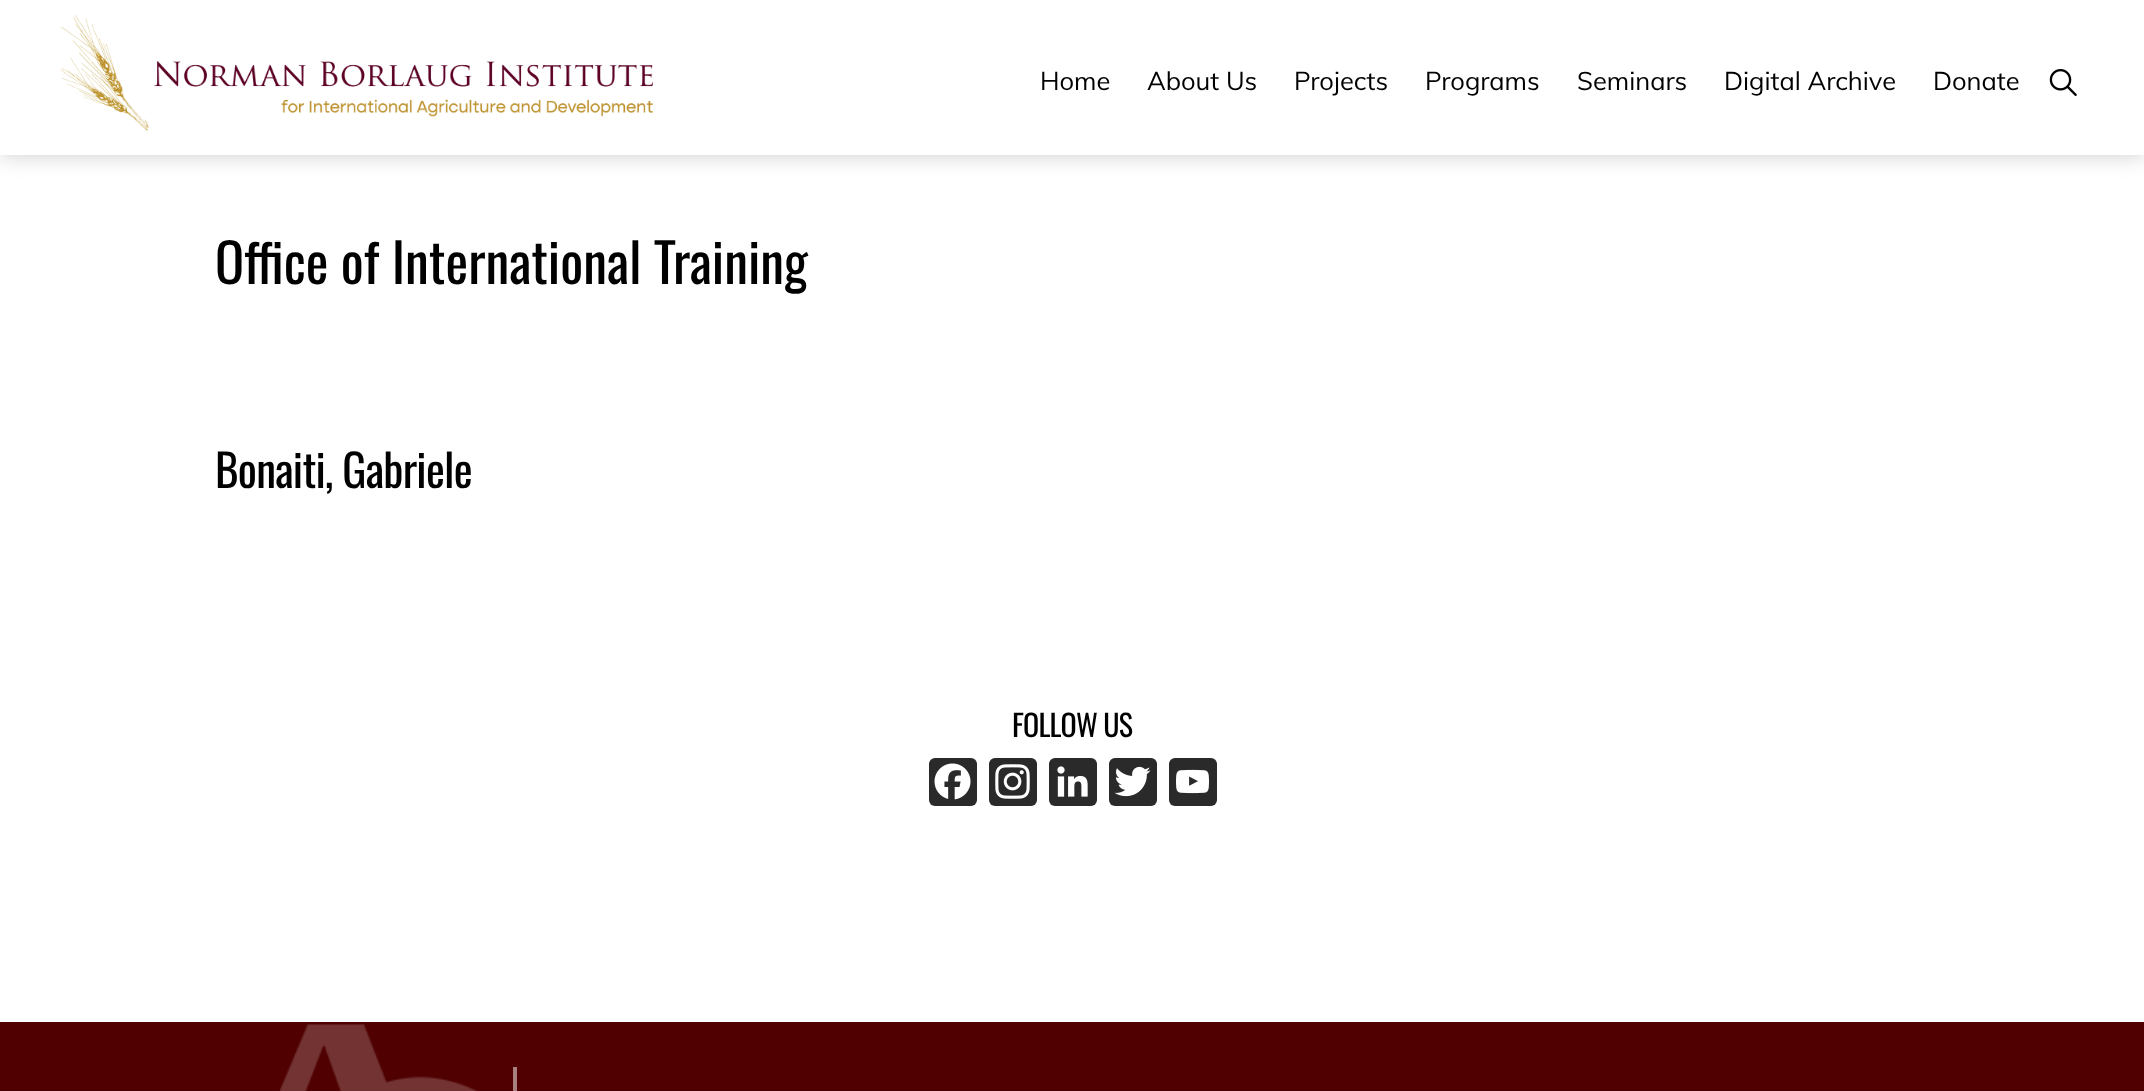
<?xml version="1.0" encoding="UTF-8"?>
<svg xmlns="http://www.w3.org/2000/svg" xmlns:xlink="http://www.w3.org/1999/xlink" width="2144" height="1091">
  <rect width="100%" height="100%" fill="#ffffff" />
  <rect width="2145" height="155" fill="#707070" fill-opacity="0.35" filter="blur(11px)" />
  <rect width="2144" height="155" fill="#ffffff" />
  <image x="60" y="15" width="594" height="116" xlink:href="image1.png" />
  <image x="2049" y="69" width="28" height="27" xlink:href="image2.png" />
  <rect x="929" y="758" width="48" height="48" rx="6" fill="#2a2a2a" />
  <image x="934" y="763" width="37" height="37" xlink:href="image3.png" />
  <rect x="989" y="758" width="48" height="48" rx="6" fill="#2a2a2a" />
  <image x="995" y="764" width="35" height="35" xlink:href="image4.png" />
  <rect x="1049" y="758" width="48" height="48" rx="6" fill="#2a2a2a" />
  <image x="1057" y="766" width="31" height="31" xlink:href="image5.png" />
  <rect x="1109" y="758" width="48" height="48" rx="6" fill="#2a2a2a" />
  <image x="1114" y="766" width="37" height="31" xlink:href="image6.png" />
  <rect x="1169" y="758" width="48" height="48" rx="6" fill="#2a2a2a" />
  <image x="1176" y="769" width="33" height="25" xlink:href="image7.png" />
  <rect y="1022" width="2144" height="69" fill="#500000" />
  <image x="279" y="1024" width="198" height="67" xlink:href="image8.png" />
  <rect x="513" y="1067" width="4" height="24" fill="#a88080" />
  <text x="1040" y="90" style="font-family: Muli; font-size: 25.5px; fill: #000000">Home</text>
  <text x="1147" y="90" style="font-family: Muli; font-size: 25.5px; fill: #000000">About Us</text>
  <text x="1294" y="90" style="font-family: Muli; font-size: 25.5px; fill: #000000">Projects</text>
  <text x="1425" y="90" style="font-family: Muli; font-size: 25.5px; fill: #000000">Programs</text>
  <text x="1577" y="90" style="font-family: Muli; font-size: 25.5px; fill: #000000">Seminars</text>
  <text x="1724" y="90" style="font-family: Muli; font-size: 25.5px; fill: #000000">Digital Archive</text>
  <text x="1933" y="90" style="font-family: Muli; font-size: 25.5px; fill: #000000">Donate</text>
  <text x="215" y="284" style="font-family: Oswald; font-size: 54px; fill: #000000">Office of International Training</text>
  <text x="215" y="488" style="font-family: Oswald; font-size: 45px; letter-spacing: -0.75px; fill: #000000">Bonaiti, Gabriele</text>
  <text x="1012" y="737" style="font-family: Oswald; font-size: 30px; letter-spacing: -0.75px; fill: #000000">FOLLOW US</text>
</svg>
